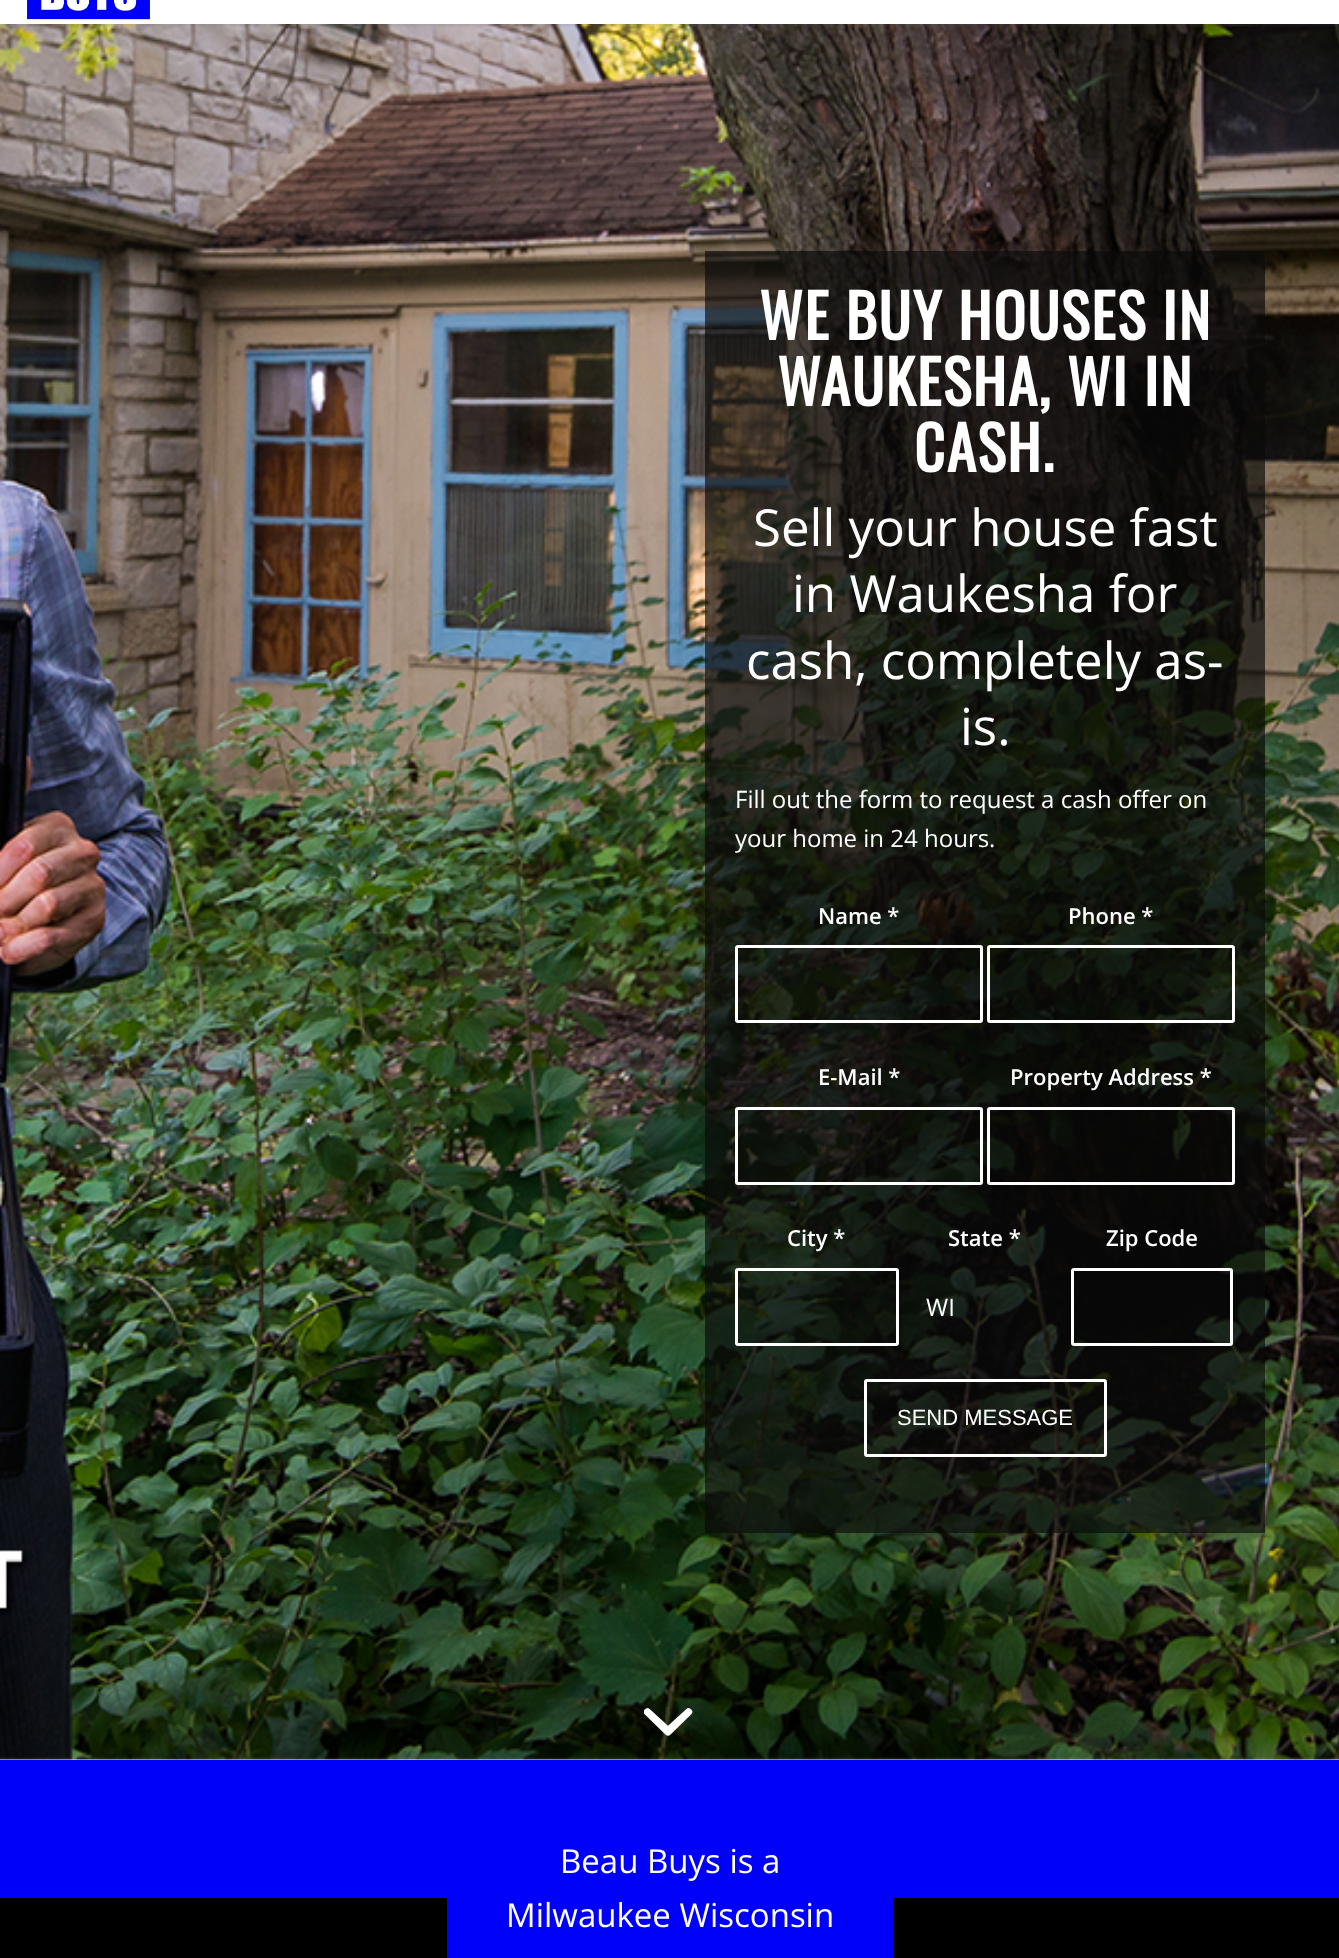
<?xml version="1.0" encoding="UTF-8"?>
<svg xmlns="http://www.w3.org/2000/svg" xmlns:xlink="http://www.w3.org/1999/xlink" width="1339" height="1958">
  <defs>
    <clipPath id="clip1"><rect x="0" y="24" width="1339" height="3" /></clipPath>
  </defs>
  <rect width="100%" height="100%" fill="#ffffff" />
  <image x="0" y="24" width="1339" height="1736" xlink:href="image2.png" />
  <g clip-path="url(#clip1)">
    <rect x="-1" y="-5" width="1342" height="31" fill="#000000" fill-opacity="0.1" filter="blur(1.5px)" />
  </g>
  <image x="27" y="0" width="123" height="20" xlink:href="image1.png" />
  <rect x="705" y="251" width="560" height="1282" fill="#0a0a0a" fill-opacity="0.67" />
  <rect x="736.5" y="946.5" width="245" height="75" rx="1.5" fill="none" stroke="#ffffff" stroke-width="3" />
  <rect x="988.5" y="946.5" width="245" height="75" rx="1.5" fill="none" stroke="#ffffff" stroke-width="3" />
  <rect x="736.5" y="1108.5" width="245" height="75" rx="1.5" fill="none" stroke="#ffffff" stroke-width="3" />
  <rect x="988.5" y="1108.5" width="245" height="75" rx="1.5" fill="none" stroke="#ffffff" stroke-width="3" />
  <rect x="736.5" y="1269.5" width="161" height="75" rx="1.5" fill="none" stroke="#ffffff" stroke-width="3" />
  <rect x="1072.5" y="1269.5" width="159" height="75" rx="1.5" fill="none" stroke="#ffffff" stroke-width="3" />
  <rect x="865.5" y="1380.5" width="240" height="75" rx="1.5" fill="none" stroke="#ffffff" stroke-width="3" />
  <image x="644" y="1708" width="49" height="28" xlink:href="image3.png" />
  <rect y="1760" width="447" height="138" fill="#0001f9" />
  <rect y="1898" width="447" height="60" fill="#000000" />
  <rect x="447" y="1760" width="446" height="198" fill="#0001f9" />
  <rect x="893" y="1760" width="446" height="138" fill="#0001f9" />
  <rect x="893" y="1898" width="446" height="60" fill="#000000" />
  <text x="759" y="340" style="font-family: Oswald; font-size: 60px; font-weight: bold; letter-spacing: 1.5px; fill: #ffffff">WE BUY HOUSES IN</text>
  <text x="777" y="406" style="font-family: Oswald; font-size: 60px; font-weight: bold; letter-spacing: 1.5px; fill: #ffffff">WAUKESHA, WI IN</text>
  <text x="914" y="472" style="font-family: Oswald; font-size: 60px; font-weight: bold; letter-spacing: 1.5px; fill: #ffffff">CASH.</text>
  <text x="753" y="546" style="font-family: Open Sans; font-size: 51px; fill: #ffffff">Sell your house fast</text>
  <text x="792" y="612" style="font-family: Open Sans; font-size: 51px; fill: #ffffff">in Waukesha for</text>
  <text x="746" y="679" style="font-family: Open Sans; font-size: 51px; fill: #ffffff">cash, completely as-</text>
  <text x="960" y="745" style="font-family: Open Sans; font-size: 51px; fill: #ffffff">is.</text>
  <text x="735" y="808" style="font-family: Open Sans; font-size: 24px; fill: #ffffff">Fill out the form to request a cash offer on</text>
  <text x="735" y="847" style="font-family: Open Sans; font-size: 24px; fill: #ffffff">your home in 24 hours.</text>
  <text x="818" y="924" style="font-family: Open Sans; font-size: 22px; font-weight: 600; fill: #ffffff">Name *</text>
  <text x="1068" y="924" style="font-family: Open Sans; font-size: 22px; font-weight: 600; fill: #ffffff">Phone *</text>
  <text x="818" y="1085" style="font-family: Open Sans; font-size: 22px; font-weight: 600; fill: #ffffff">E-Mail *</text>
  <text x="1010" y="1085" style="font-family: Open Sans; font-size: 22px; font-weight: 600; fill: #ffffff">Property Address *</text>
  <text x="787" y="1246" style="font-family: Open Sans; font-size: 22px; font-weight: 600; fill: #ffffff">City *</text>
  <text x="948" y="1246" style="font-family: Open Sans; font-size: 22px; font-weight: 600; fill: #ffffff">State *</text>
  <text x="926" y="1316" style="font-family: Open Sans; font-size: 24px; fill: #ffffff">WI</text>
  <text x="1106" y="1246" style="font-family: Open Sans; font-size: 22px; font-weight: 600; fill: #ffffff">Zip Code</text>
  <text x="897" y="1425" style="font-family: Liberation Sans; font-size: 22px; fill: #ffffff">SEND MESSAGE</text>
  <text x="560" y="1873" style="font-family: Open Sans; font-size: 33px; fill: #ffffff">Beau Buys is a</text>
  <text x="506" y="1927" style="font-family: Open Sans; font-size: 33px; fill: #ffffff">Milwaukee Wisconsin</text>
</svg>
